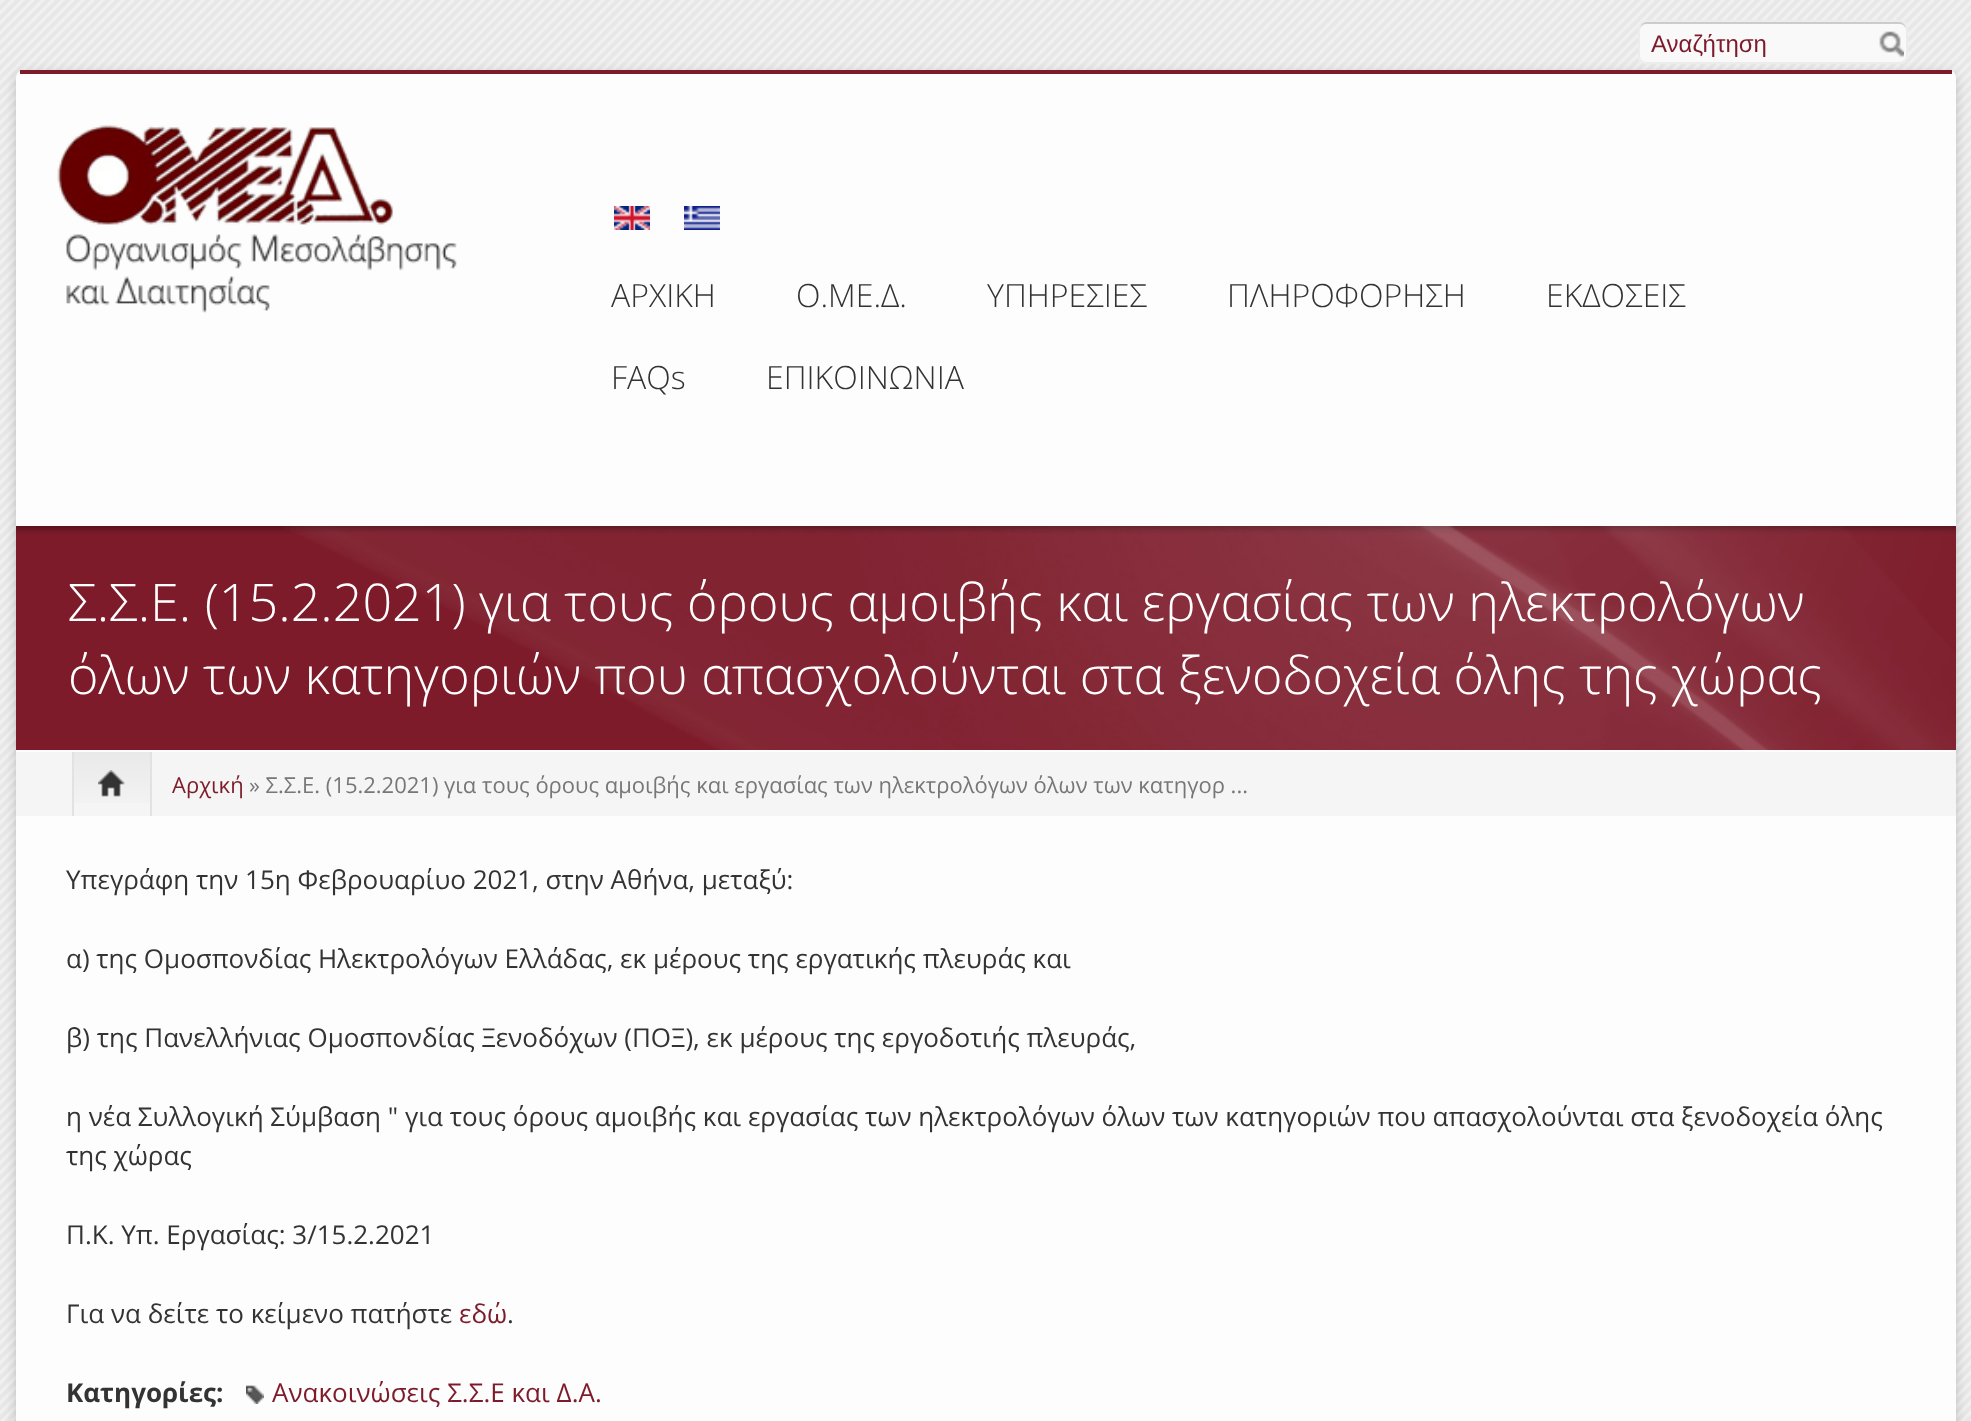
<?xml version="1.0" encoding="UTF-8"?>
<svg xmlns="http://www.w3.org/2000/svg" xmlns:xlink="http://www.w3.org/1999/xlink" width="1971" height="1421">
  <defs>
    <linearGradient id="g1" gradientUnits="userSpaceOnUse" x1="112" y1="752" x2="112" y2="816"><stop offset="0" stop-color="#e9e9e9" /><stop offset="1" stop-color="#f5f5f5" /></linearGradient>
  </defs>
  <rect width="100%" height="100%" fill="#ffffff" />
  <image x="0" y="0" width="1971" height="1421" xlink:href="image1.png" />
  <rect x="16" y="74" width="1940" height="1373" rx="8" fill="#323232" fill-opacity="0.25" filter="blur(6px)" />
  <rect x="1638" y="20" width="270" height="44" rx="8" fill="#f9f9f9" />
  <path d="M 1646 24 h 254 c 3 0 6 3 6 6 c 0 -3 -1 -7 -5 -8 h -256 c -4 1 -5 5 -5 8 c 0 -3 3 -6 6 -6 z" fill="#cccccc" />
  <rect x="1639" y="21" width="268" height="42" rx="7" fill="none" stroke="#ececec" stroke-width="2" />
  <image x="1879" y="31" width="25" height="27" xlink:href="image2.png" />
  <rect x="16" y="70" width="1940" height="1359" rx="8" fill="#fdfdfd" />
  <rect x="20" y="70" width="1932" height="4" fill="#7d1b2a" />
  <image x="57" y="124" width="400" height="189" xlink:href="image3.png" />
  <image x="614" y="206" width="36" height="24" xlink:href="image4.png" />
  <image x="684" y="206" width="36" height="24" xlink:href="image5.png" />
  <rect x="16" y="526" width="1940" height="224" fill="#7d1b2a" />
  <image x="16" y="526" width="1940" height="224" xlink:href="image6.png" />
  <rect x="16" y="752" width="1940" height="64" fill="#f5f5f5" />
  <rect x="74" y="752" width="76" height="51" fill="url(#g1)" />
  <rect x="150" y="752" width="2" height="64" fill="#e2e2e2" />
  <rect x="72" y="752" width="2" height="64" fill="#e2e2e2" />
  <image x="98" y="770" width="27" height="27" xlink:href="image7.png" />
  <image x="246" y="1385" width="18" height="19" xlink:href="image8.png" />
  <text x="1651" y="52" style="font-family: Liberation Sans; font-size: 24px; fill: #7d1b2a">Αναζήτηση</text>
  <text x="611" y="307" style="font-family: Open Sans; font-size: 32px; font-weight: 300; fill: #333333">ΑΡΧΙΚΗ</text>
  <text x="796" y="307" style="font-family: Open Sans; font-size: 32px; font-weight: 300; fill: #333333">Ο.ΜΕ.Δ.</text>
  <text x="987" y="307" style="font-family: Open Sans; font-size: 32px; font-weight: 300; fill: #333333">ΥΠΗΡΕΣΙΕΣ</text>
  <text x="1227" y="307" style="font-family: Open Sans; font-size: 32px; font-weight: 300; fill: #333333">ΠΛΗΡΟΦΟΡΗΣΗ</text>
  <text x="1546" y="307" style="font-family: Open Sans; font-size: 32px; font-weight: 300; fill: #333333">ΕΚΔΟΣΕΙΣ</text>
  <text x="611" y="389" style="font-family: Open Sans; font-size: 32px; font-weight: 300; fill: #333333">FAQs</text>
  <text x="766" y="389" style="font-family: Open Sans; font-size: 32px; font-weight: 300; fill: #333333">ΕΠΙΚΟΙΝΩΝΙΑ</text>
  <text x="68" y="621" style="font-family: Open Sans; font-size: 52px; font-weight: 300; fill: #ffffff">Σ.Σ.Ε. (15.2.2021) για τους όρους αμοιβής και εργασίας των ηλεκτρολόγων</text>
  <text x="68" y="694" style="font-family: Open Sans; font-size: 52px; font-weight: 300; fill: #ffffff">όλων των κατηγοριών που απασχολούνται στα ξενοδοχεία όλης της χώρας</text>
  <text x="172" y="793" style="font-family: Open Sans; font-size: 22px; fill: #7d1b2a">Αρχική</text>
  <text x="249" y="793" style="font-family: Open Sans; font-size: 22px; fill: #777777">» Σ.Σ.Ε. (15.2.2021) για τους όρους αμοιβής και εργασίας των ηλεκτρολόγων όλων των κατηγορ ...</text>
  <text x="66" y="889" style="font-family: Open Sans; font-size: 26px; fill: #333333">Υπεγράφη την 15η Φεβρουαρίυο 2021, στην Αθήνα, μεταξύ:</text>
  <text x="66" y="968" style="font-family: Open Sans; font-size: 26px; fill: #333333">α) της Ομοσπονδίας Ηλεκτρολόγων Ελλάδας, εκ μέρους της εργατικής πλευράς και</text>
  <text x="66" y="1047" style="font-family: Open Sans; font-size: 26px; fill: #333333">β) της Πανελλήνιας Ομοσπονδίας Ξενοδόχων (ΠΟΞ), εκ μέρους της εργοδοτιής πλευράς,</text>
  <text x="66" y="1126" style="font-family: Open Sans; font-size: 26px; fill: #333333">η νέα Συλλογική Σύμβαση " για τους όρους αμοιβής και εργασίας των ηλεκτρολόγων όλων των κατηγοριών που απασχολούνται στα ξενοδοχεία όλης</text>
  <text x="66" y="1165" style="font-family: Open Sans; font-size: 26px; fill: #333333">της χώρας</text>
  <text x="66" y="1244" style="font-family: Open Sans; font-size: 26px; fill: #333333">Π.Κ. Υπ. Εργασίας: 3/15.2.2021</text>
  <text x="66" y="1323" style="font-family: Open Sans; font-size: 26px; fill: #333333">Για να δείτε το κείμενο πατήστε</text>
  <text x="459" y="1323" style="font-family: Open Sans; font-size: 26px; fill: #7d1b2a">εδώ</text>
  <text x="507" y="1323" style="font-family: Open Sans; font-size: 26px; fill: #333333">.</text>
  <text x="66" y="1402" style="font-family: Open Sans; font-size: 26px; font-weight: bold; fill: #333333">Κατηγορίες:</text>
  <text x="272" y="1402" style="font-family: Open Sans; font-size: 26px; fill: #7d1b2a">Ανακοινώσεις Σ.Σ.Ε και Δ.Α.</text>
</svg>
